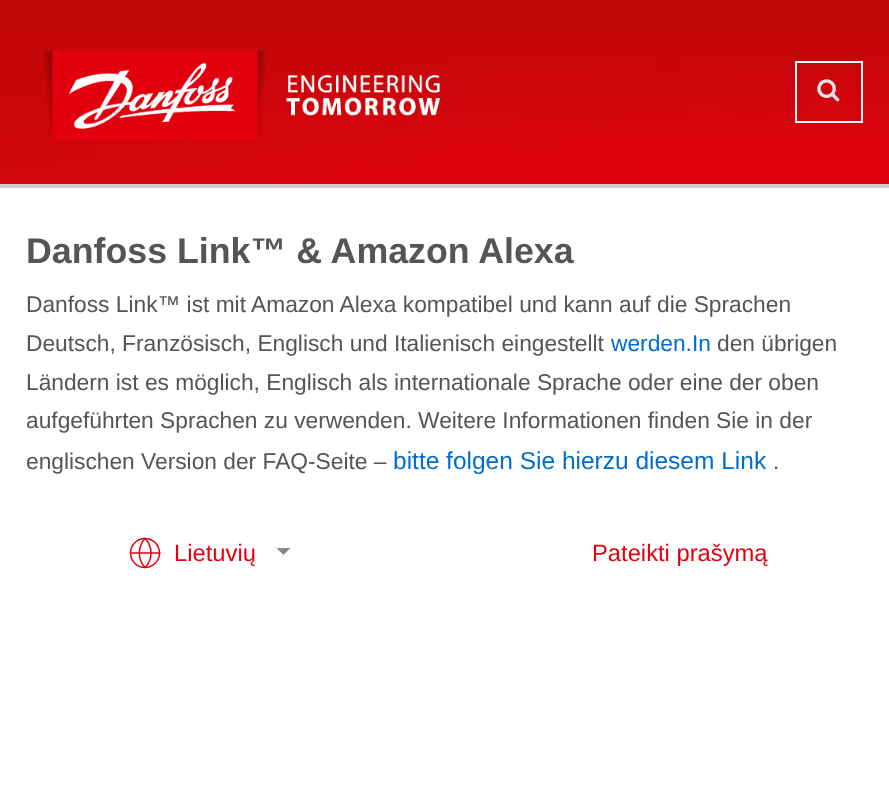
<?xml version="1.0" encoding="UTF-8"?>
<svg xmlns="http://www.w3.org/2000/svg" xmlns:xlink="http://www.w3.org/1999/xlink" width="889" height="789">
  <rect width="100%" height="100%" fill="#ffffff" />
  <rect width="889" height="29" fill="#c00708" />
  <image x="0" y="29" width="889" height="155" xlink:href="image1.png" />
  <rect y="184" width="889" height="4" fill="#cccccc" />
  <image x="42" y="50" width="399" height="90" xlink:href="image2.png" />
  <rect x="796" y="62" width="66" height="60" fill="none" stroke="#f8f9fa" stroke-width="2" />
  <image x="817" y="79" width="23" height="23" xlink:href="image3.png" />
  <circle cx="145" cy="553" r="14.5" fill="none" stroke="#e3000f" stroke-width="1.5" />
  <path d="M 130.5 553 h 29.5 m -15 -14.5 c 8 8 8 21 0 29 c -7.5 -8 -7.5 -21 0 -29 z" fill="none" stroke="#e3000f" stroke-width="1.5" stroke-linecap="round" stroke-linejoin="round" />
  <path d="M 276.5 548 h 14 l -7 7 z" fill="#888888" />
  <text x="26" y="263" style="font-family: Liberation Sans; font-size: 35.75px; font-weight: bold; fill: #555555">Danfoss Link™ &amp; Amazon Alexa</text>
  <text x="26" y="312" style="font-family: Liberation Sans; font-size: 22.75px; fill: #555555">Danfoss Link™ ist mit Amazon Alexa kompatibel und kann auf die Sprachen</text>
  <text x="26" y="351" style="font-family: Liberation Sans; font-size: 22.75px; fill: #555555">Deutsch, Französisch, Englisch und Italienisch eingestellt</text>
  <text x="611" y="351" style="font-family: Liberation Sans; font-size: 22.75px; fill: #006dcc">werden.In</text>
  <text x="717" y="351" style="font-family: Liberation Sans; font-size: 22.75px; fill: #555555">den übrigen</text>
  <text x="26" y="390" style="font-family: Liberation Sans; font-size: 22.75px; fill: #555555">Ländern ist es möglich, Englisch als internationale Sprache oder eine der oben</text>
  <text x="26" y="428" style="font-family: Liberation Sans; font-size: 22.75px; fill: #555555">aufgeführten Sprachen zu verwenden. Weitere Informationen finden Sie in der</text>
  <text x="26" y="469" style="font-family: Liberation Sans; font-size: 22.75px; fill: #555555">englischen Version der FAQ-Seite –</text>
  <text x="393" y="469" style="font-family: Liberation Sans; font-size: 24.5px; fill: #006dcc">bitte folgen Sie hierzu diesem Link</text>
  <text x="773" y="469" style="font-family: Liberation Sans; font-size: 22.75px; fill: #555555">.</text>
  <text x="174" y="561" style="font-family: Liberation Sans; font-size: 23.75px; fill: #e3000f">Lietuvių</text>
  <text x="592" y="561" style="font-family: Liberation Sans; font-size: 23.75px; fill: #e3000f">Pateikti prašymą</text>
</svg>
